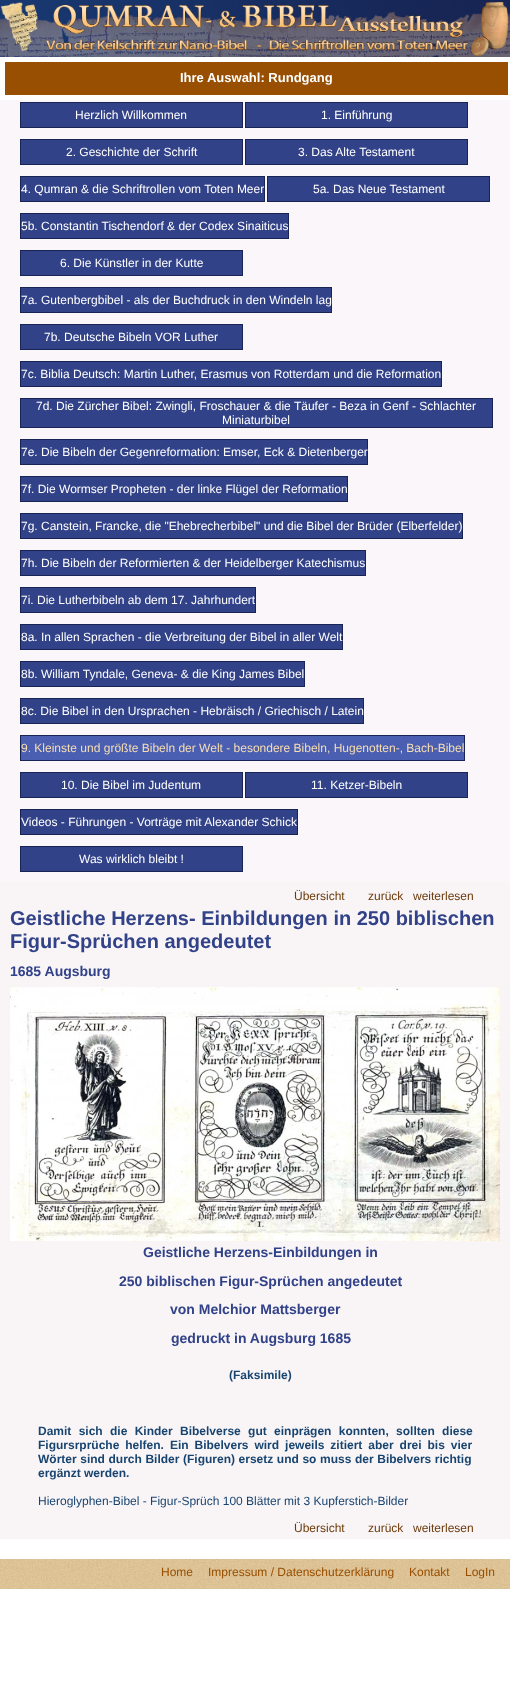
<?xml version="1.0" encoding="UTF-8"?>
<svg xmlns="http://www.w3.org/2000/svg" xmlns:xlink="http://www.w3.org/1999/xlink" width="510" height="1685">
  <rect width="100%" height="100%" fill="#ffffff" />
  <image x="0" y="0" width="510" height="57" xlink:href="image1.png" />
  <rect x="5" y="62" width="503" height="33" fill="#984f01" />
  <rect y="100" width="510" height="781" fill="#faf6f9" />
  <rect x="20.5" y="102.5" width="222" height="25" fill="#324288" stroke="#182454" />
  <rect x="245.5" y="102.5" width="222" height="25" fill="#324288" stroke="#182454" />
  <rect x="20.5" y="139.5" width="222" height="25" fill="#324288" stroke="#182454" />
  <rect x="245.5" y="139.5" width="222" height="25" fill="#324288" stroke="#182454" />
  <rect x="20.5" y="176.5" width="244" height="25" fill="#324288" stroke="#182454" />
  <rect x="267.5" y="176.5" width="222" height="25" fill="#324288" stroke="#182454" />
  <rect x="20.5" y="213.5" width="268" height="25" fill="#324288" stroke="#182454" />
  <rect x="20.5" y="250.5" width="222" height="25" fill="#324288" stroke="#182454" />
  <rect x="20.5" y="287.5" width="311" height="25" fill="#324288" stroke="#182454" />
  <rect x="20.5" y="324.5" width="222" height="25" fill="#324288" stroke="#182454" />
  <rect x="20.5" y="361.5" width="421" height="25" fill="#324288" stroke="#182454" />
  <rect x="20.5" y="398.5" width="472" height="29" fill="#324288" stroke="#182454" />
  <rect x="20.5" y="439.5" width="347" height="25" fill="#324288" stroke="#182454" />
  <rect x="20.5" y="476.5" width="327" height="25" fill="#324288" stroke="#182454" />
  <rect x="20.5" y="513.5" width="442" height="25" fill="#324288" stroke="#182454" />
  <rect x="20.5" y="550.5" width="345" height="25" fill="#324288" stroke="#182454" />
  <rect x="20.5" y="587.5" width="235" height="25" fill="#324288" stroke="#182454" />
  <rect x="20.5" y="624.5" width="322" height="25" fill="#324288" stroke="#182454" />
  <rect x="20.5" y="661.5" width="284" height="25" fill="#324288" stroke="#182454" />
  <rect x="20.5" y="698.5" width="343" height="25" fill="#324288" stroke="#182454" />
  <rect x="20.5" y="735.5" width="444" height="25" fill="#4a5fb2" stroke="#182454" />
  <rect x="20.5" y="772.5" width="222" height="25" fill="#324288" stroke="#182454" />
  <rect x="245.5" y="772.5" width="222" height="25" fill="#324288" stroke="#182454" />
  <rect x="20.5" y="809.5" width="277" height="25" fill="#324288" stroke="#182454" />
  <rect x="20.5" y="846.5" width="222" height="25" fill="#324288" stroke="#182454" />
  <rect y="881" width="510" height="658" fill="#f9f5f7" />
  <image x="10" y="987" width="490" height="254" xlink:href="image2.png" />
  <image x="0" y="1559" width="510" height="30" xlink:href="image3.png" />
  <text x="180" y="82" style="font-family: Liberation Sans; font-size: 13px; font-weight: bold; fill: #ffffff">Ihre Auswahl: Rundgang</text>
  <text x="75" y="119" style="font-family: Liberation Sans; font-size: 12px; fill: #ffffff">Herzlich Willkommen</text>
  <text x="321" y="119" style="font-family: Liberation Sans; font-size: 12px; fill: #ffffff">1. Einführung</text>
  <text x="66" y="156" style="font-family: Liberation Sans; font-size: 12px; fill: #ffffff">2. Geschichte der Schrift</text>
  <text x="298" y="156" style="font-family: Liberation Sans; font-size: 12px; fill: #ffffff">3. Das Alte Testament</text>
  <text x="21" y="193" style="font-family: Liberation Sans; font-size: 12px; fill: #ffffff">4. Qumran &amp; die Schriftrollen vom Toten Meer</text>
  <text x="313" y="193" style="font-family: Liberation Sans; font-size: 12px; fill: #ffffff">5a. Das Neue Testament</text>
  <text x="21" y="230" style="font-family: Liberation Sans; font-size: 12px; fill: #ffffff">5b. Constantin Tischendorf &amp; der Codex Sinaiticus</text>
  <text x="60" y="267" style="font-family: Liberation Sans; font-size: 12px; fill: #ffffff">6. Die Künstler in der Kutte</text>
  <text x="21" y="304" style="font-family: Liberation Sans; font-size: 12px; fill: #ffffff">7a. Gutenbergbibel - als der Buchdruck in den Windeln lag</text>
  <text x="44" y="341" style="font-family: Liberation Sans; font-size: 12px; fill: #ffffff">7b. Deutsche Bibeln VOR Luther</text>
  <text x="21" y="378" style="font-family: Liberation Sans; font-size: 12px; fill: #ffffff">7c. Biblia Deutsch: Martin Luther, Erasmus von Rotterdam und die Reformation</text>
  <text x="36" y="410" style="font-family: Liberation Sans; font-size: 12px; fill: #ffffff">7d. Die Zürcher Bibel: Zwingli, Froschauer &amp; die Täufer - Beza in Genf - Schlachter</text>
  <text x="222" y="424" style="font-family: Liberation Sans; font-size: 12px; fill: #ffffff">Miniaturbibel</text>
  <text x="21" y="456" style="font-family: Liberation Sans; font-size: 12px; fill: #ffffff">7e. Die Bibeln der Gegenreformation: Emser, Eck &amp; Dietenberger</text>
  <text x="21" y="493" style="font-family: Liberation Sans; font-size: 12px; fill: #ffffff">7f. Die Wormser Propheten - der linke Flügel der Reformation</text>
  <text x="21" y="530" style="font-family: Liberation Sans; font-size: 12px; fill: #ffffff">7g. Canstein, Francke, die "Ehebrecherbibel" und die Bibel der Brüder (Elberfelder)</text>
  <text x="21" y="567" style="font-family: Liberation Sans; font-size: 12px; fill: #ffffff">7h. Die Bibeln der Reformierten &amp; der Heidelberger Katechismus</text>
  <text x="21" y="604" style="font-family: Liberation Sans; font-size: 12px; fill: #ffffff">7i. Die Lutherbibeln ab dem 17. Jahrhundert</text>
  <text x="21" y="641" style="font-family: Liberation Sans; font-size: 12px; fill: #ffffff">8a. In allen Sprachen - die Verbreitung der Bibel in aller Welt</text>
  <text x="21" y="678" style="font-family: Liberation Sans; font-size: 12px; fill: #ffffff">8b. William Tyndale, Geneva- &amp; die King James Bibel</text>
  <text x="21" y="715" style="font-family: Liberation Sans; font-size: 12px; fill: #ffffff">8c. Die Bibel in den Ursprachen - Hebräisch / Griechisch / Latein</text>
  <text x="21" y="752" style="font-family: Liberation Sans; font-size: 12px; fill: #f9deb2">9. Kleinste und größte Bibeln der Welt - besondere Bibeln, Hugenotten-, Bach-Bibel</text>
  <text x="61" y="789" style="font-family: Liberation Sans; font-size: 12px; fill: #ffffff">10. Die Bibel im Judentum</text>
  <text x="311" y="789" style="font-family: Liberation Sans; font-size: 12px; fill: #ffffff">11. Ketzer-Bibeln</text>
  <text x="21" y="826" style="font-family: Liberation Sans; font-size: 12px; fill: #ffffff">Videos - Führungen - Vorträge mit Alexander Schick</text>
  <text x="79" y="863" style="font-family: Liberation Sans; font-size: 12px; fill: #ffffff">Was wirklich bleibt !</text>
  <text x="294" y="900" style="font-family: Liberation Sans; font-size: 12px; fill: #6b3a09">Übersicht</text>
  <text x="368" y="900" style="font-family: Liberation Sans; font-size: 12px; fill: #6b3a09">zurück</text>
  <text x="413" y="900" style="font-family: Liberation Sans; font-size: 12px; fill: #6b3a09">weiterlesen</text>
  <text x="10" y="925" style="font-family: Liberation Sans; font-size: 20px; font-weight: bold; fill: #324288">Geistliche Herzens- Einbildungen in 250 biblischen</text>
  <text x="10" y="948" style="font-family: Liberation Sans; font-size: 20px; font-weight: bold; fill: #324288">Figur-Sprüchen angedeutet</text>
  <text x="10" y="976" style="font-family: Liberation Sans; font-size: 14px; font-weight: bold; fill: #324288">1685 Augsburg</text>
  <text x="143" y="1257" style="font-family: Liberation Sans; font-size: 14px; font-weight: bold; fill: #324288">Geistliche Herzens-Einbildungen in</text>
  <text x="119" y="1286" style="font-family: Liberation Sans; font-size: 14px; font-weight: bold; fill: #324288">250 biblischen Figur-Sprüchen angedeutet</text>
  <text x="170" y="1314" style="font-family: Liberation Sans; font-size: 14px; font-weight: bold; fill: #324288">von Melchior Mattsberger</text>
  <text x="171" y="1343" style="font-family: Liberation Sans; font-size: 14px; font-weight: bold; fill: #324288">gedruckt in Augsburg 1685</text>
  <text x="229" y="1379" style="font-family: Liberation Sans; font-size: 12px; font-weight: bold; fill: #184470">(Faksimile)</text>
  <text x="38" y="1435" word-spacing="4" style="font-family: Liberation Sans; font-size: 12px; font-weight: bold; fill: #184470">Damit sich die Kinder Bibelverse gut einprägen konnten, sollten diese</text>
  <text x="38" y="1449" word-spacing="2.6" style="font-family: Liberation Sans; font-size: 12px; font-weight: bold; fill: #184470">Figursrprüche helfen. Ein Bibelvers wird jeweils zitiert aber drei bis vier</text>
  <text x="38" y="1463" word-spacing="0.25" style="font-family: Liberation Sans; font-size: 12px; font-weight: bold; fill: #184470">Wörter sind durch Bilder (Figuren) ersetz und so muss der Bibelvers richtig</text>
  <text x="38" y="1477" style="font-family: Liberation Sans; font-size: 12px; font-weight: bold; fill: #184470">ergänzt werden.</text>
  <text x="38" y="1505" style="font-family: Liberation Sans; font-size: 12px; fill: #184470">Hieroglyphen-Bibel - Figur-Sprüch 100 Blätter mit 3 Kupferstich-Bilder</text>
  <text x="294" y="1532" style="font-family: Liberation Sans; font-size: 12px; fill: #6b3a09">Übersicht</text>
  <text x="368" y="1532" style="font-family: Liberation Sans; font-size: 12px; fill: #6b3a09">zurück</text>
  <text x="413" y="1532" style="font-family: Liberation Sans; font-size: 12px; fill: #6b3a09">weiterlesen</text>
  <text x="161" y="1576" style="font-family: Liberation Sans; font-size: 12px; fill: #984f01">Home</text>
  <text x="208" y="1576" style="font-family: Liberation Sans; font-size: 12px; fill: #984f01">Impressum / Datenschutzerklärung</text>
  <text x="409" y="1576" style="font-family: Liberation Sans; font-size: 12px; fill: #984f01">Kontakt</text>
  <text x="465" y="1576" style="font-family: Liberation Sans; font-size: 12px; fill: #984f01">LogIn</text>
</svg>
